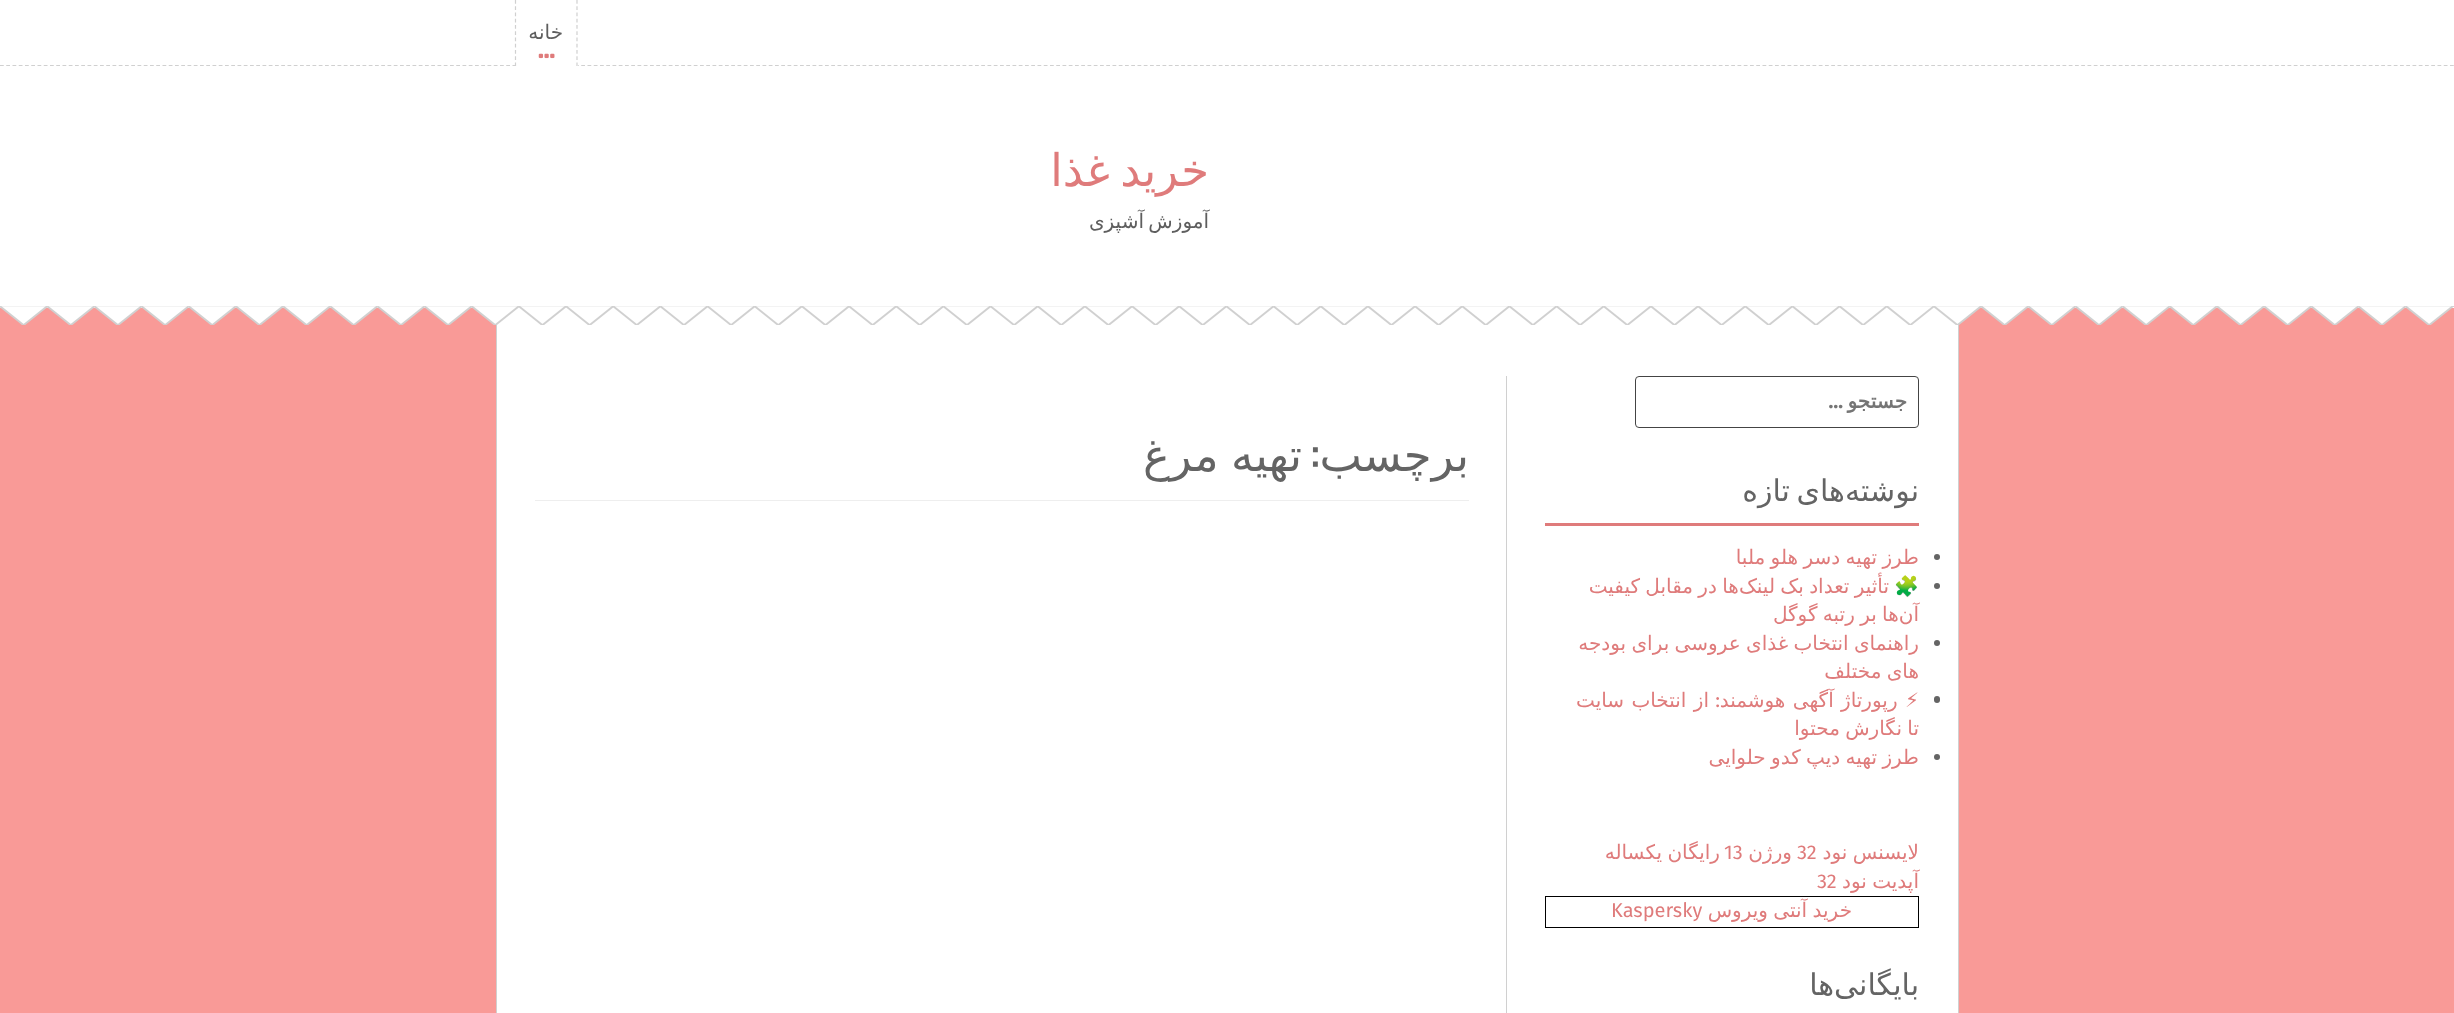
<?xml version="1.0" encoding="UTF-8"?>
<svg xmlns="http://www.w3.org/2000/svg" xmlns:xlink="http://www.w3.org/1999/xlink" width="2454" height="1013">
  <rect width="100%" height="100%" fill="#f99a97" />
  <rect width="2454" height="66" fill="#ffffff" />
  <path d="M 0 65.5 h 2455" fill="none" stroke="#d0d0d0" stroke-width="1.2" stroke-dasharray="3.75 2.5" />
  <rect x="515" y="64" width="63" height="2" fill="#ffffff" />
  <path d="M 577 0 v 66" fill="none" stroke="#d0d0d0" stroke-width="1.2" stroke-dasharray="3.75 2.5" />
  <path d="M 515.5 0 v 66" fill="none" stroke="#d0d0d0" stroke-width="1.2" stroke-dasharray="3.75 2.5" />
  <image x="538" y="53" width="17" height="6" xlink:href="image1.png" />
  <rect x="497" y="308" width="1461" height="705" fill="#ffffff" />
  <rect x="496.5" y="306.5" width="1462" height="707" fill="none" stroke="#d0d0d0" />
  <rect y="66" width="2454" height="242" fill="#ffffff" />
  <rect y="306" width="2454" height="1" fill="#d0d0d0" />
  <image x="0" y="306" width="2453" height="19" xlink:href="image2.png" />
  <rect x="1635.5" y="376.5" width="283" height="51" rx="3.5" fill="none" stroke="#444444" />
  <rect x="1545" y="523" width="374" height="3" fill="#df7b7b" />
  <circle cx="1937" cy="557" r="3" fill="#646464" />
  <circle cx="1937" cy="586" r="3" fill="#646464" />
  <circle cx="1937" cy="643" r="3" fill="#646464" />
  <rect x="1934" y="696" width="6" height="7" rx="3" fill="#646464" />
  <circle cx="1937" cy="757" r="3" fill="#646464" />
  <rect x="1545.5" y="896.5" width="373" height="31" fill="none" stroke="#000000" />
  <rect x="1506" y="376" width="1" height="637" fill="#d0d0d0" />
  <rect x="535" y="500" width="934" height="1" fill="#eeeeee" />
  <text x="563" y="39" style="font-family: DejaVu Sans; font-size: 20px; direction: rtl; fill: #5e5e5e">خانه</text>
  <text x="1209" y="186" word-spacing="-4" style="font-family: DejaVu Sans; font-size: 45px; direction: rtl; fill: #df7b7b">خرید غذا</text>
  <text x="1209" y="228" word-spacing="-2" style="font-family: DejaVu Sans; font-size: 20px; direction: rtl; fill: #5e5e5e">آموزش آشپزی</text>
  <text x="1907" y="408" style="font-family: DejaVu Sans; font-size: 20px; font-weight: bold; direction: rtl; fill: #757575">جستجو</text>
  <text x="1843" y="408" style="font-family: Fira Sans; font-size: 20px; font-weight: bold; direction: rtl; fill: #757575">…</text>
  <text x="1919" y="501" word-spacing="-3" style="font-family: DejaVu Sans; font-size: 30px; direction: rtl; fill: #646464">نوشته‌های تازه</text>
  <text x="1919" y="564" word-spacing="-1" style="font-family: DejaVu Sans; font-size: 20px; direction: rtl; fill: #df7b7b">طرز تهیه دسر هلو ملبا</text>
  <text x="1889" y="593" word-spacing="-1" style="font-family: DejaVu Sans; font-size: 20px; direction: rtl; fill: #df7b7b">تأثیر تعداد بک لینک‌ها در مقابل کیفیت</text>
  <text x="1919" y="593" style="font-family: Noto Color Emoji; font-size: 20px; direction: rtl; fill: #df7b7b">🧩</text>
  <text x="1919" y="621" word-spacing="-1" style="font-family: DejaVu Sans; font-size: 20px; direction: rtl; fill: #df7b7b">آن‌ها بر رتبه گوگل</text>
  <text x="1919" y="650" word-spacing="-1" style="font-family: DejaVu Sans; font-size: 20px; direction: rtl; fill: #df7b7b">راهنمای انتخاب غذای عروسی برای بودجه</text>
  <text x="1919" y="678" word-spacing="-1" style="font-family: DejaVu Sans; font-size: 20px; direction: rtl; fill: #df7b7b">های مختلف</text>
  <text x="1919" y="707" word-spacing="1" style="font-family: DejaVu Sans; font-size: 20px; direction: rtl; fill: #df7b7b">⚡ رپورتاژ آگهی هوشمند</text>
  <text x="1720" y="707" style="font-family: Fira Sans; font-size: 20px; direction: rtl; fill: #df7b7b">:</text>
  <text x="1709" y="707" word-spacing="1" style="font-family: DejaVu Sans; font-size: 20px; direction: rtl; fill: #df7b7b">از انتخاب سایت</text>
  <text x="1919" y="735" word-spacing="-1" style="font-family: DejaVu Sans; font-size: 20px; direction: rtl; fill: #df7b7b">تا نگارش محتوا</text>
  <text x="1919" y="764" word-spacing="-1" style="font-family: DejaVu Sans; font-size: 20px; direction: rtl; fill: #df7b7b">طرز تهیه دیپ کدو حلوایی</text>
  <text x="1919" y="859" word-spacing="-1" style="font-family: DejaVu Sans; font-size: 20px; direction: rtl; fill: #df7b7b">لایسنس نود</text>
  <text x="1797" y="859" style="font-family: Fira Sans; font-size: 20px; fill: #df7b7b">32</text>
  <text x="1792" y="859" style="font-family: DejaVu Sans; font-size: 20px; direction: rtl; fill: #df7b7b">ورژن</text>
  <text x="1724" y="859" style="font-family: Fira Sans; font-size: 20px; fill: #df7b7b">13</text>
  <text x="1720" y="859" word-spacing="-1" style="font-family: DejaVu Sans; font-size: 20px; direction: rtl; fill: #df7b7b">رایگان یکساله</text>
  <text x="1919" y="888" word-spacing="-1" style="font-family: DejaVu Sans; font-size: 20px; direction: rtl; fill: #df7b7b">آپدیت نود</text>
  <text x="1817" y="888" style="font-family: Fira Sans; font-size: 20px; fill: #df7b7b">32</text>
  <text x="1852" y="917" word-spacing="-1" style="font-family: DejaVu Sans; font-size: 20px; direction: rtl; fill: #df7b7b">خرید آنتی ویروس</text>
  <text x="1611" y="917" style="font-family: Fira Sans; font-size: 20px; fill: #df7b7b">Kaspersky</text>
  <text x="1919" y="995" style="font-family: DejaVu Sans; font-size: 30px; direction: rtl; fill: #646464">بایگانی‌ها</text>
  <text x="1469" y="471" style="font-family: DejaVu Sans; font-size: 45px; direction: rtl; fill: #646464">برچسب</text>
  <text x="1319" y="471" style="font-family: Oswald; font-size: 45px; direction: rtl; fill: #646464">:</text>
  <text x="1302" y="471" word-spacing="-2" style="font-family: DejaVu Sans; font-size: 45px; direction: rtl; fill: #646464">تهیه مرغ</text>
</svg>
